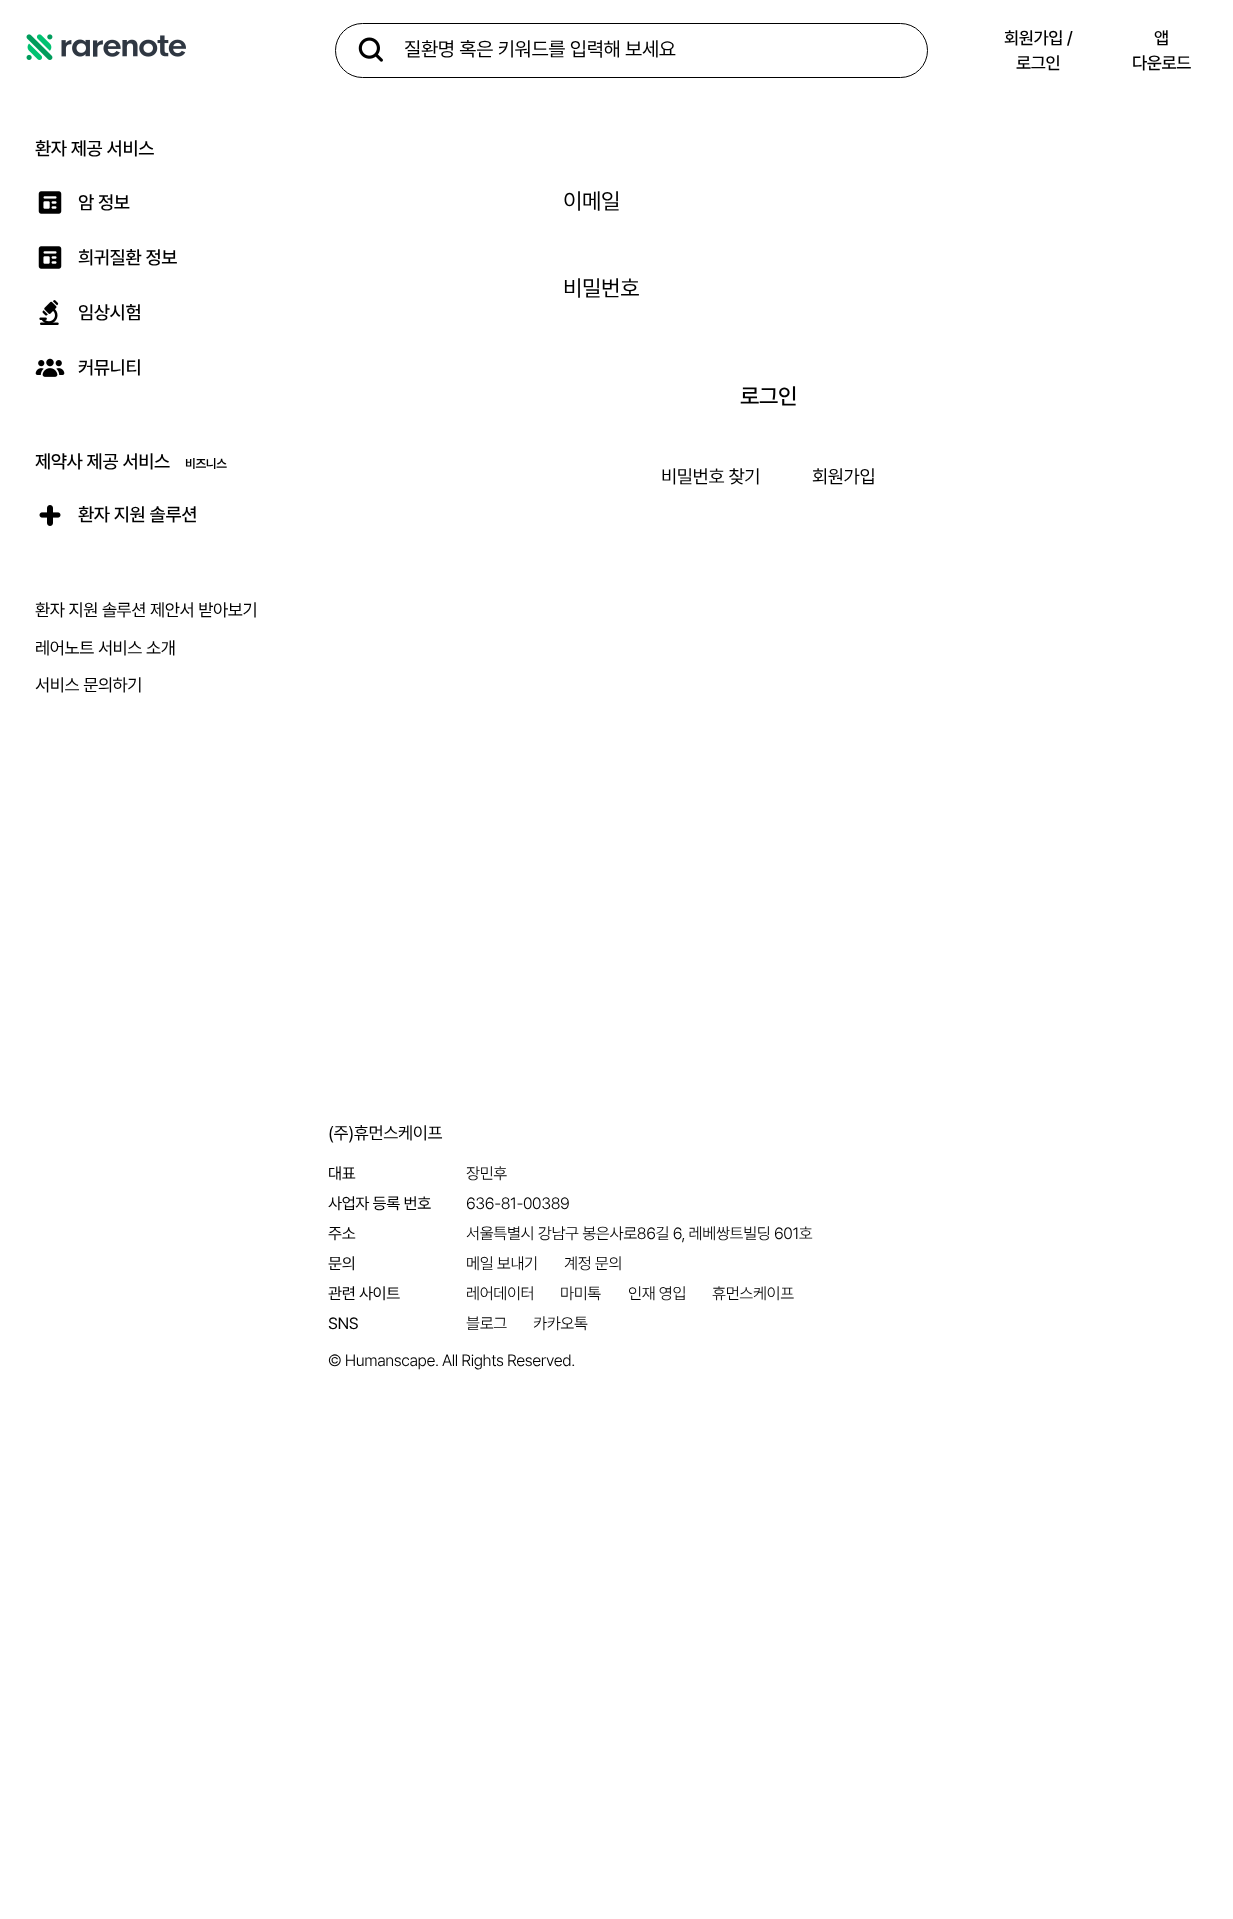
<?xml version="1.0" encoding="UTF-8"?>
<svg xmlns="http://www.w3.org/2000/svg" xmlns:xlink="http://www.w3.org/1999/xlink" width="1233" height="1919">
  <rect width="100%" height="100%" fill="#ffffff" />
  <image x="26" y="34" width="160" height="26" xlink:href="image1.png" />
  <rect x="335.5" y="23.5" width="592" height="54" rx="27" fill="none" stroke="#000000" />
  <image x="358" y="37" width="25" height="25" xlink:href="image2.png" />
  <image x="38" y="191" width="24" height="23" xlink:href="image3.png" />
  <image x="38" y="246" width="24" height="23" xlink:href="image3.png" />
  <image x="39" y="300" width="20" height="25" xlink:href="image4.png" />
  <image x="35" y="358" width="30" height="19" xlink:href="image5.png" />
  <image x="39" y="505" width="22" height="21" xlink:href="image6.png" />
  <text x="404" y="56" style="font-family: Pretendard; font-size: 20px; letter-spacing: -0.4px; fill: #000000">질환명 혹은 키워드를 입력해 보세요</text>
  <text x="1004" y="44" style="font-family: Pretendard; font-size: 17.5px; font-weight: 500; letter-spacing: -0.4px; fill: #000000">회원가입 /</text>
  <text x="1016" y="69" style="font-family: Pretendard; font-size: 17.5px; font-weight: 500; letter-spacing: -0.4px; fill: #000000">로그인</text>
  <text x="1154" y="44" style="font-family: Pretendard; font-size: 17.5px; font-weight: 500; letter-spacing: -0.4px; fill: #000000">앱</text>
  <text x="1132" y="69" style="font-family: Pretendard; font-size: 17.5px; font-weight: 500; letter-spacing: -0.4px; fill: #000000">다운로드</text>
  <text x="35" y="155" style="font-family: Pretendard; font-size: 18.75px; font-weight: 500; letter-spacing: -0.4px; fill: #000000">환자 제공 서비스</text>
  <text x="78" y="209" style="font-family: Pretendard; font-size: 18.75px; font-weight: 500; letter-spacing: -0.4px; fill: #000000">암 정보</text>
  <text x="78" y="264" style="font-family: Pretendard; font-size: 18.75px; font-weight: 500; letter-spacing: -0.4px; fill: #000000">희귀질환 정보</text>
  <text x="78" y="319" style="font-family: Pretendard; font-size: 18.75px; font-weight: 500; letter-spacing: -0.4px; fill: #000000">임상시험</text>
  <text x="78" y="374" style="font-family: Pretendard; font-size: 18.75px; font-weight: 500; letter-spacing: -0.4px; fill: #000000">커뮤니티</text>
  <text x="35" y="468" style="font-family: Pretendard; font-size: 18.75px; font-weight: 500; letter-spacing: -0.4px; fill: #000000">제약사 제공 서비스</text>
  <text x="185" y="468" style="font-family: Pretendard; font-size: 12.5px; font-weight: 600; letter-spacing: -0.4px; fill: #000000">비즈니스</text>
  <text x="78" y="521" style="font-family: Pretendard; font-size: 18.75px; font-weight: 500; letter-spacing: -0.4px; fill: #000000">환자 지원 솔루션</text>
  <text x="35" y="616" style="font-family: Pretendard; font-size: 17.5px; letter-spacing: -0.4px; fill: #000000">환자 지원 솔루션 제안서 받아보기</text>
  <text x="35" y="654" style="font-family: Pretendard; font-size: 17.5px; letter-spacing: -0.4px; fill: #000000">레어노트 서비스 소개</text>
  <text x="35" y="691" style="font-family: Pretendard; font-size: 17.5px; letter-spacing: -0.4px; fill: #000000">서비스 문의하기</text>
  <text x="563" y="209" style="font-family: Pretendard; font-size: 22.5px; letter-spacing: -0.4px; fill: #000000">이메일</text>
  <text x="563" y="296" style="font-family: Pretendard; font-size: 22.5px; letter-spacing: -0.4px; fill: #000000">비밀번호</text>
  <text x="740" y="404" style="font-family: Pretendard; font-size: 22.5px; font-weight: 500; letter-spacing: -0.4px; fill: #000000">로그인</text>
  <text x="661" y="483" style="font-family: Pretendard; font-size: 18.75px; letter-spacing: -0.4px; fill: #000000">비밀번호 찾기</text>
  <text x="812" y="483" style="font-family: Pretendard; font-size: 18.75px; letter-spacing: -0.4px; fill: #000000">회원가입</text>
  <text x="328" y="1139" style="font-family: Pretendard; font-size: 17.5px; letter-spacing: -0.4px; fill: #000000">(주)휴먼스케이프</text>
  <text x="328" y="1179" style="font-family: Pretendard; font-size: 16.25px; letter-spacing: -0.4px; fill: #000000">대표</text>
  <text x="466" y="1179" style="font-family: Pretendard; font-size: 16.25px; font-weight: 300; letter-spacing: -0.4px; fill: #000000">장민후</text>
  <text x="328" y="1209" style="font-family: Pretendard; font-size: 16.25px; letter-spacing: -0.4px; fill: #000000">사업자 등록 번호</text>
  <text x="466" y="1209" style="font-family: Pretendard; font-size: 16.25px; font-weight: 300; letter-spacing: -0.4px; fill: #000000">636-81-00389</text>
  <text x="328" y="1239" style="font-family: Pretendard; font-size: 16.25px; letter-spacing: -0.4px; fill: #000000">주소</text>
  <text x="466" y="1239" style="font-family: Pretendard; font-size: 16.25px; font-weight: 300; letter-spacing: -0.4px; fill: #000000">서울특별시 강남구 봉은사로86길 6, 레베쌍트빌딩 601호</text>
  <text x="328" y="1269" style="font-family: Pretendard; font-size: 16.25px; letter-spacing: -0.4px; fill: #000000">문의</text>
  <text x="466" y="1269" style="font-family: Pretendard; font-size: 16.25px; font-weight: 300; letter-spacing: -0.4px; fill: #000000">메일 보내기</text>
  <text x="564" y="1269" style="font-family: Pretendard; font-size: 16.25px; font-weight: 300; letter-spacing: -0.4px; fill: #000000">계정 문의</text>
  <text x="328" y="1299" style="font-family: Pretendard; font-size: 16.25px; letter-spacing: -0.4px; fill: #000000">관련 사이트</text>
  <text x="466" y="1299" style="font-family: Pretendard; font-size: 16.25px; font-weight: 300; letter-spacing: -0.4px; fill: #000000">레어데이터</text>
  <text x="560" y="1299" style="font-family: Pretendard; font-size: 16.25px; font-weight: 300; letter-spacing: -0.4px; fill: #000000">마미톡</text>
  <text x="628" y="1299" style="font-family: Pretendard; font-size: 16.25px; font-weight: 300; letter-spacing: -0.4px; fill: #000000">인재 영입</text>
  <text x="712" y="1299" style="font-family: Pretendard; font-size: 16.25px; font-weight: 300; letter-spacing: -0.4px; fill: #000000">휴먼스케이프</text>
  <text x="328" y="1329" style="font-family: Pretendard; font-size: 16.25px; letter-spacing: -0.4px; fill: #000000">SNS</text>
  <text x="466" y="1329" style="font-family: Pretendard; font-size: 16.25px; font-weight: 300; letter-spacing: -0.4px; fill: #000000">블로그</text>
  <text x="533" y="1329" style="font-family: Pretendard; font-size: 16.25px; font-weight: 300; letter-spacing: -0.4px; fill: #000000">카카오톡</text>
  <text x="328" y="1366" style="font-family: Pretendard; font-size: 16.25px; font-weight: 300; letter-spacing: -0.4px; fill: #000000">© Humanscape. All Rights Reserved.</text>
</svg>
